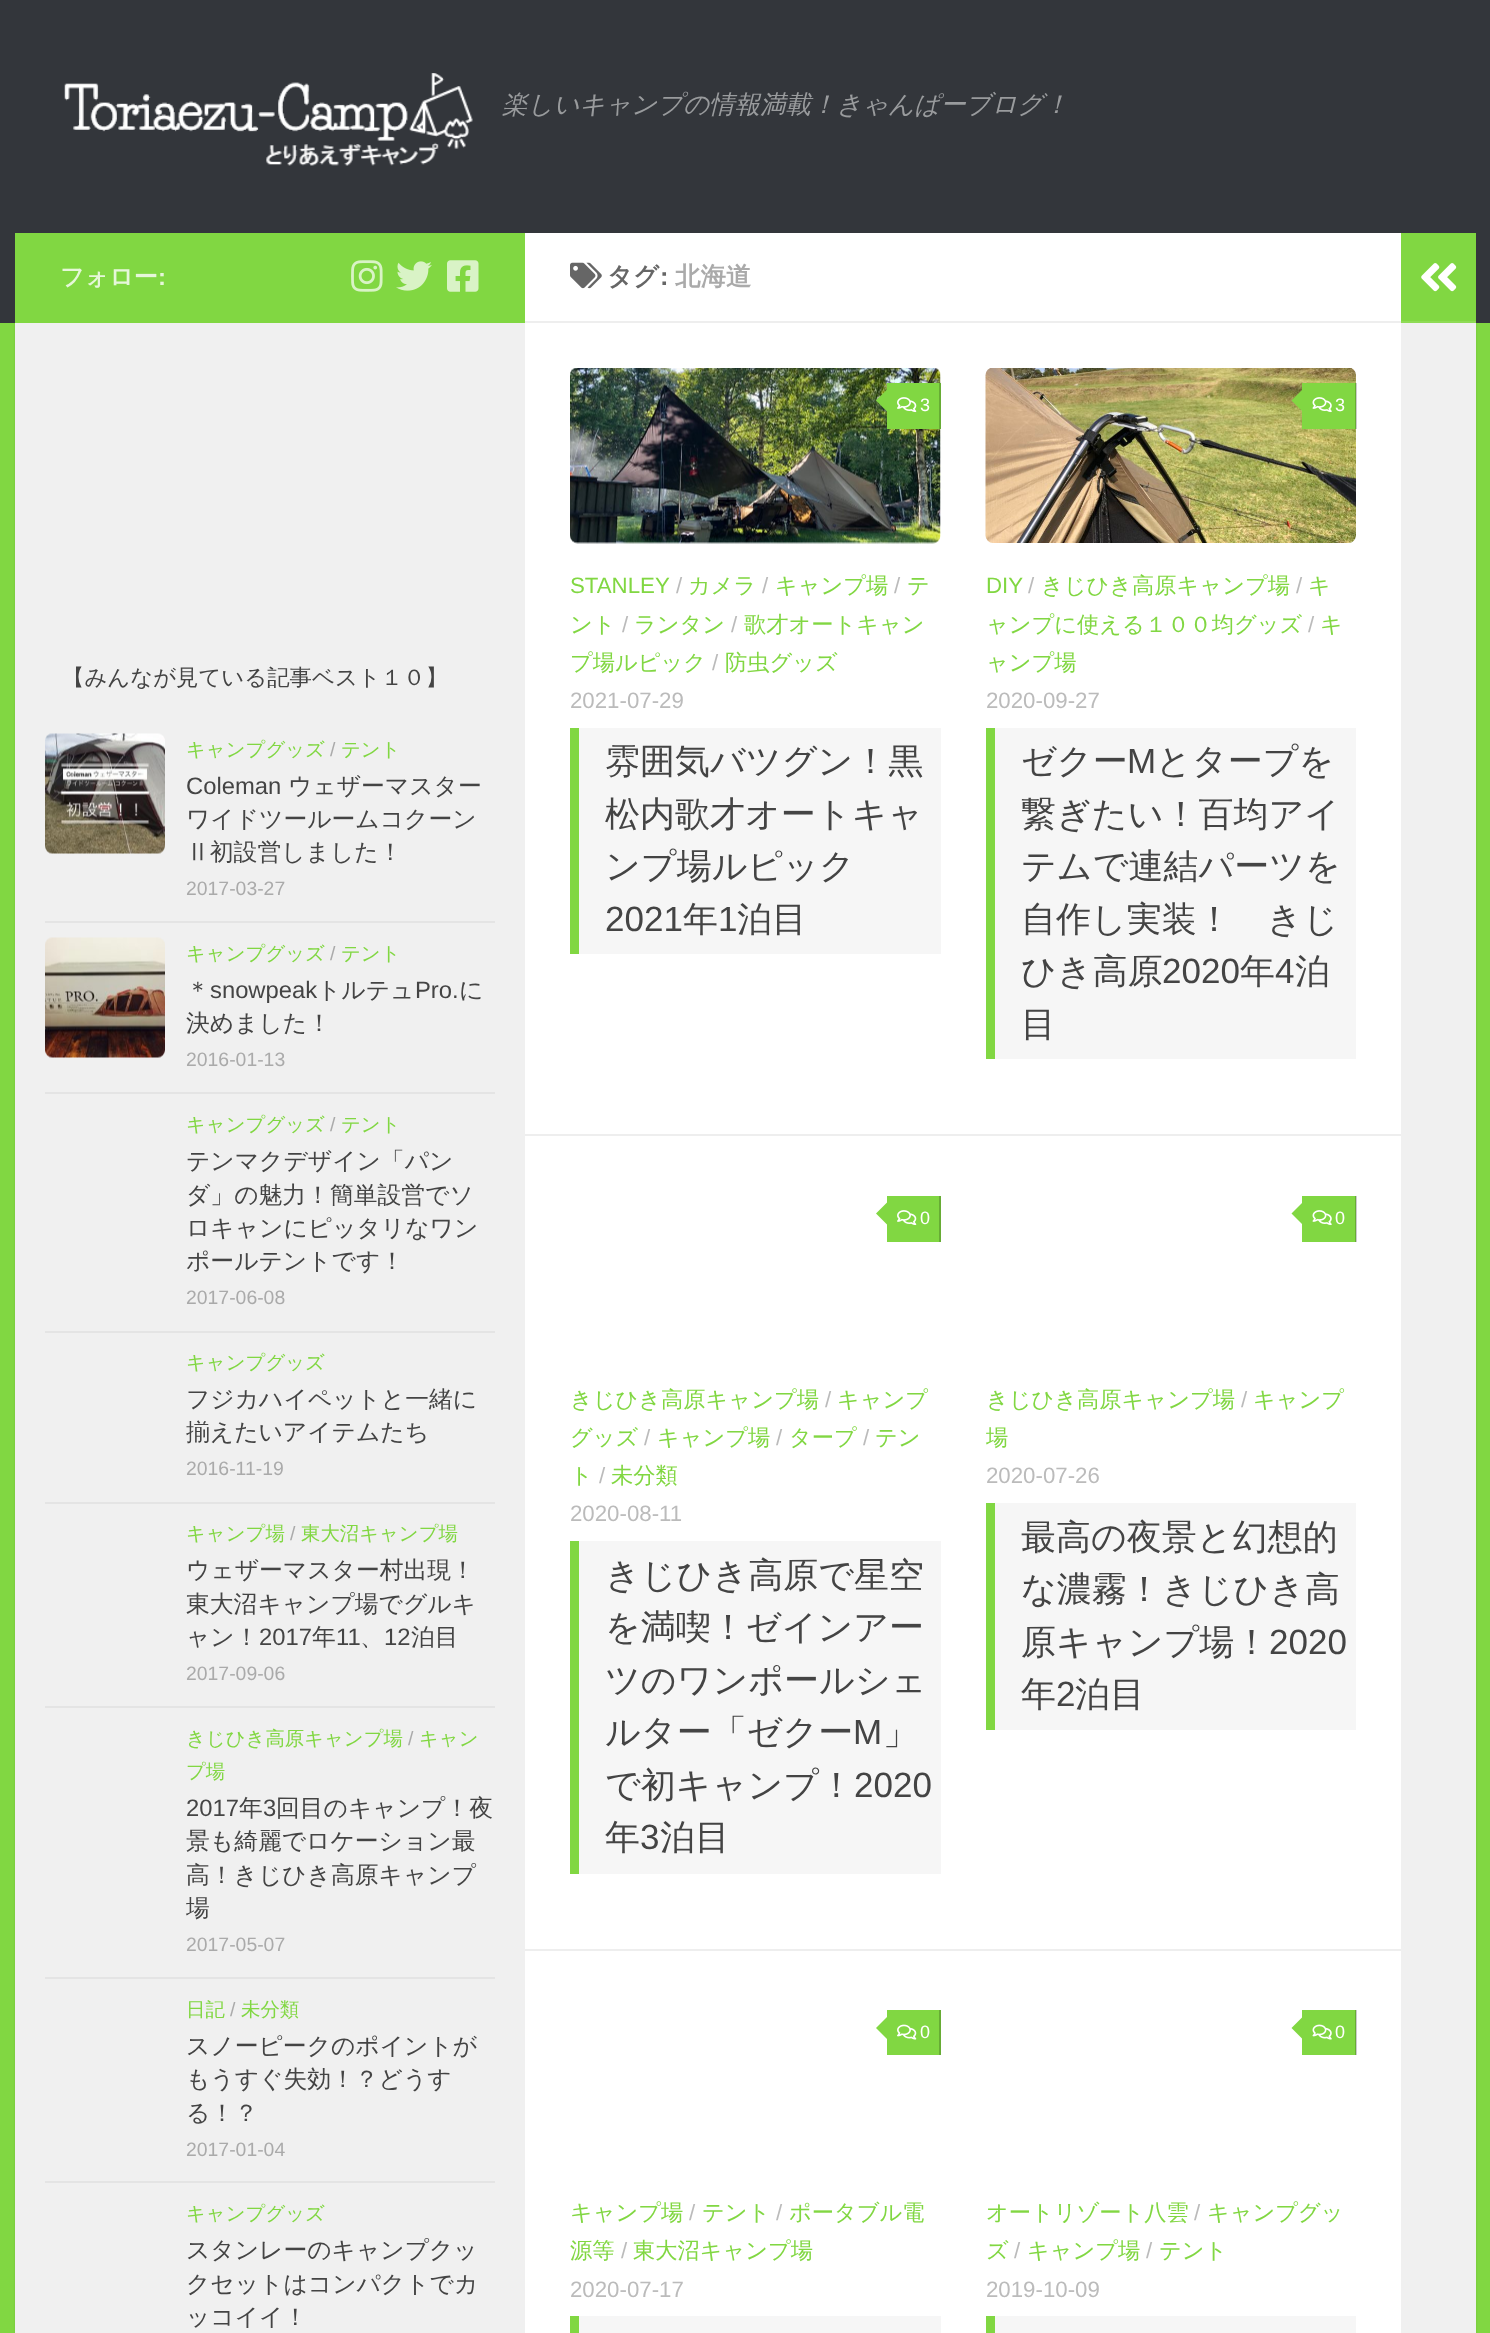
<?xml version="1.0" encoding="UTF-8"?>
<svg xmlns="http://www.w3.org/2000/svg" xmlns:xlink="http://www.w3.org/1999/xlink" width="1490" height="2333">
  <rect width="100%" height="100%" fill="#81d742" />
  <rect x="15" y="234" width="1461" height="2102" fill="#000000" fill-opacity="0.1" filter="blur(1px)" />
  <rect width="1490" height="323" fill="#33363b" />
  <image x="64" y="73" width="409" height="93" xlink:href="image1.png" />
  <rect x="525" y="233" width="876" height="2100" fill="#ffffff" />
  <rect x="1356" y="2010" width="1" height="45" fill="#cccccc" />
  <rect x="1356" y="1196" width="1" height="46" fill="#cccccc" />
  <rect x="15" y="233" width="510" height="90" fill="#81d742" />
  <image x="351" y="260" width="32" height="32" xlink:href="image2.png" />
  <image x="396" y="261" width="36" height="30" xlink:href="image3.png" />
  <image x="447" y="260" width="32" height="32" xlink:href="image4.png" />
  <rect x="15" y="323" width="510" height="2010" fill="#f0f0f0" />
  <rect x="45" y="921" width="450" height="2" fill="#e4e4e4" />
  <image x="45" y="733" width="120" height="121" xlink:href="image5.png" />
  <rect x="45" y="1092" width="450" height="2" fill="#e4e4e4" />
  <image x="45" y="937" width="120" height="121" xlink:href="image6.png" />
  <rect x="45" y="1331" width="450" height="2" fill="#e4e4e4" />
  <rect x="45" y="1502" width="450" height="2" fill="#e4e4e4" />
  <rect x="45" y="1706" width="450" height="2" fill="#e4e4e4" />
  <rect x="45" y="1977" width="450" height="2" fill="#e4e4e4" />
  <rect x="45" y="2181" width="450" height="2" fill="#e4e4e4" />
  <rect x="525" y="321" width="876" height="2" fill="#eeeeee" />
  <image x="570" y="262" width="32" height="27" xlink:href="image7.png" />
  <rect x="525" y="1134" width="876" height="2" fill="#eeeeee" />
  <image x="570" y="368" width="371" height="176" xlink:href="image8.png" />
  <rect x="887" y="383" width="52" height="46" fill="#81d742" />
  <rect x="939" y="383" width="2" height="46" fill="#67ac35" />
  <path d="M 889.5 387 v 27 l -13.5 -13.5 z" fill="#81d742" />
  <image x="897" y="397" width="20" height="16" xlink:href="image9.png" />
  <rect x="579" y="728" width="362" height="226" fill="#f6f6f6" />
  <rect x="570" y="728" width="9" height="226" fill="#81d742" />
  <image x="985" y="368" width="371" height="175" xlink:href="image10.png" />
  <rect x="1302" y="383" width="54" height="46" fill="#81d742" />
  <rect x="1355" y="383" width="2" height="46" fill="#000000" fill-opacity="0.2" />
  <path d="M 1305 387 v 27 l -13.5 -13.5 z" fill="#81d742" />
  <image x="1312" y="397" width="20" height="16" xlink:href="image11.png" />
  <rect x="995" y="728" width="361" height="331" fill="#f6f6f6" />
  <rect x="986" y="728" width="9" height="331" fill="#81d742" />
  <rect x="525" y="1949" width="876" height="2" fill="#eeeeee" />
  <rect x="887" y="1196" width="52" height="46" fill="#81d742" />
  <rect x="939" y="1196" width="2" height="46" fill="#67ac35" />
  <path d="M 889.5 1200 v 27 l -13.5 -13.5 z" fill="#81d742" />
  <image x="897" y="1210" width="20" height="16" xlink:href="image9.png" />
  <rect x="579" y="1541" width="362" height="333" fill="#f6f6f6" />
  <rect x="570" y="1541" width="9" height="333" fill="#81d742" />
  <rect x="1302" y="1196" width="53" height="46" fill="#81d742" />
  <rect x="1355" y="1196" width="1" height="46" fill="#67ac35" />
  <path d="M 1305 1200 v 27 l -13.5 -13.5 z" fill="#81d742" />
  <image x="1312" y="1210" width="20" height="16" xlink:href="image11.png" />
  <rect x="995" y="1503" width="361" height="227" fill="#f6f6f6" />
  <rect x="986" y="1503" width="9" height="227" fill="#81d742" />
  <rect x="887" y="2010" width="52" height="45" fill="#81d742" />
  <rect x="939" y="2010" width="2" height="45" fill="#67ac35" />
  <path d="M 889.5 2014.5 v 27 l -13.5 -13.5 z" fill="#81d742" />
  <image x="897" y="2024" width="20" height="16" xlink:href="image12.png" />
  <rect x="579" y="2316" width="362" height="17" fill="#f6f6f6" />
  <rect x="570" y="2316" width="9" height="17" fill="#81d742" />
  <rect x="1302" y="2010" width="53" height="45" fill="#81d742" />
  <rect x="1355" y="2010" width="1" height="45" fill="#67ac35" />
  <path d="M 1305 2014.5 v 27 l -13.5 -13.5 z" fill="#81d742" />
  <image x="1312" y="2024" width="20" height="16" xlink:href="image13.png" />
  <rect x="995" y="2316" width="361" height="17" fill="#f6f6f6" />
  <rect x="986" y="2316" width="9" height="17" fill="#81d742" />
  <rect x="1401" y="233" width="75" height="88" fill="#81d742" />
  <rect x="1401" y="321" width="75" height="2" fill="#8edb55" />
  <image x="1421" y="263" width="36" height="29" xlink:href="image14.png" />
  <rect x="1401" y="323" width="75" height="2010" fill="#f0f0f0" />
  <text x="502" y="113" style="font-family: WenQuanYi Zen Hei; font-size: 25.4px; font-weight: 500; font-style: italic; fill: #999b9d">楽しいキャンプの情報満載！きゃんぱーブログ！</text>
  <text x="60" y="285" style="font-family: WenQuanYi Zen Hei; font-size: 24px; font-weight: bold; fill: #e6f7d9">フォロー</text>
  <text x="158" y="285" style="font-family: Liberation Sans; font-size: 24px; font-weight: bold; fill: #e6f7d9">:</text>
  <text x="62" y="685" style="font-family: WenQuanYi Zen Hei; font-size: 22.4px; font-weight: 500; fill: #444444">【みんなが見ている記事ベスト１０】</text>
  <text x="186" y="756" style="font-family: WenQuanYi Zen Hei; font-size: 19.4px; font-weight: 500; fill: #81d742">キャンプグッズ</text>
  <text x="330" y="756" style="font-family: Liberation Sans; font-size: 19.4px; fill: #aaaaaa">/</text>
  <text x="341" y="756" style="font-family: WenQuanYi Zen Hei; font-size: 19.4px; font-weight: 500; fill: #81d742">テント</text>
  <text x="186" y="794" style="font-family: Liberation Sans; font-size: 23.8px; fill: #444444">Coleman</text>
  <text x="288" y="794" style="font-family: WenQuanYi Zen Hei; font-size: 23.8px; font-weight: 500; fill: #444444">ウェザーマスター</text>
  <text x="186" y="827" style="font-family: WenQuanYi Zen Hei; font-size: 23.8px; font-weight: 500; fill: #444444">ワイドツールームコクーン</text>
  <text x="186" y="860" style="font-family: WenQuanYi Zen Hei; font-size: 23.8px; font-weight: 500; fill: #444444">Ⅱ初設営しました！</text>
  <text x="186" y="895" style="font-family: Liberation Sans; font-size: 19.4px; fill: #aaaaaa">2017-03-27</text>
  <text x="186" y="960" style="font-family: WenQuanYi Zen Hei; font-size: 19.4px; font-weight: 500; fill: #81d742">キャンプグッズ</text>
  <text x="330" y="960" style="font-family: Liberation Sans; font-size: 19.4px; fill: #aaaaaa">/</text>
  <text x="341" y="960" style="font-family: WenQuanYi Zen Hei; font-size: 19.4px; font-weight: 500; fill: #81d742">テント</text>
  <text x="186" y="998" style="font-family: WenQuanYi Zen Hei; font-size: 23.8px; font-weight: 500; fill: #444444">＊</text>
  <text x="210" y="998" style="font-family: Liberation Sans; font-size: 23.8px; fill: #444444">snowpeak</text>
  <text x="317" y="998" style="font-family: WenQuanYi Zen Hei; font-size: 23.8px; font-weight: 500; fill: #444444">トルテュ</text>
  <text x="415" y="998" style="font-family: Liberation Sans; font-size: 23.8px; fill: #444444">Pro.</text>
  <text x="459" y="998" style="font-family: WenQuanYi Zen Hei; font-size: 23.8px; font-weight: 500; fill: #444444">に</text>
  <text x="186" y="1031" style="font-family: WenQuanYi Zen Hei; font-size: 23.8px; font-weight: 500; fill: #444444">決めました！</text>
  <text x="186" y="1066" style="font-family: Liberation Sans; font-size: 19.4px; fill: #aaaaaa">2016-01-13</text>
  <text x="186" y="1131" style="font-family: WenQuanYi Zen Hei; font-size: 19.4px; font-weight: 500; fill: #81d742">キャンプグッズ</text>
  <text x="330" y="1131" style="font-family: Liberation Sans; font-size: 19.4px; fill: #aaaaaa">/</text>
  <text x="341" y="1131" style="font-family: WenQuanYi Zen Hei; font-size: 19.4px; font-weight: 500; fill: #81d742">テント</text>
  <text x="186" y="1169" style="font-family: WenQuanYi Zen Hei; font-size: 23.8px; font-weight: 500; fill: #444444">テンマクデザイン「パン</text>
  <text x="186" y="1203" style="font-family: WenQuanYi Zen Hei; font-size: 23.8px; font-weight: 500; fill: #444444">ダ」の魅力！簡単設営でソ</text>
  <text x="186" y="1236" style="font-family: WenQuanYi Zen Hei; font-size: 23.8px; font-weight: 500; fill: #444444">ロキャンにピッタリなワン</text>
  <text x="186" y="1269" style="font-family: WenQuanYi Zen Hei; font-size: 23.8px; font-weight: 500; fill: #444444">ポールテントです！</text>
  <text x="186" y="1304" style="font-family: Liberation Sans; font-size: 19.4px; fill: #aaaaaa">2017-06-08</text>
  <text x="186" y="1369" style="font-family: WenQuanYi Zen Hei; font-size: 19.4px; font-weight: 500; fill: #81d742">キャンプグッズ</text>
  <text x="186" y="1407" style="font-family: WenQuanYi Zen Hei; font-size: 23.8px; font-weight: 500; fill: #444444">フジカハイペットと一緒に</text>
  <text x="186" y="1440" style="font-family: WenQuanYi Zen Hei; font-size: 23.8px; font-weight: 500; fill: #444444">揃えたいアイテムたち</text>
  <text x="186" y="1475" style="font-family: Liberation Sans; font-size: 19.4px; fill: #aaaaaa">2016-11-19</text>
  <text x="186" y="1540" style="font-family: WenQuanYi Zen Hei; font-size: 19.4px; font-weight: 500; fill: #81d742">キャンプ場</text>
  <text x="290" y="1540" style="font-family: Liberation Sans; font-size: 19.4px; fill: #aaaaaa">/</text>
  <text x="301" y="1540" style="font-family: WenQuanYi Zen Hei; font-size: 19.4px; font-weight: 500; fill: #81d742">東大沼キャンプ場</text>
  <text x="186" y="1578" style="font-family: WenQuanYi Zen Hei; font-size: 23.8px; font-weight: 500; fill: #444444">ウェザーマスター村出現！</text>
  <text x="186" y="1612" style="font-family: WenQuanYi Zen Hei; font-size: 23.8px; font-weight: 500; fill: #444444">東大沼キャンプ場でグルキ</text>
  <text x="186" y="1645" style="font-family: WenQuanYi Zen Hei; font-size: 23.8px; font-weight: 500; fill: #444444">ャン！</text>
  <text x="259" y="1645" style="font-family: Liberation Sans; font-size: 23.8px; fill: #444444">2017</text>
  <text x="312" y="1645" style="font-family: WenQuanYi Zen Hei; font-size: 23.8px; font-weight: 500; fill: #444444">年</text>
  <text x="336" y="1645" style="font-family: Liberation Sans; font-size: 23.8px; fill: #444444">11</text>
  <text x="384" y="1645" style="font-family: Liberation Sans; font-size: 23.8px; fill: #444444">12</text>
  <text x="411" y="1645" style="font-family: WenQuanYi Zen Hei; font-size: 23.8px; font-weight: 500; fill: #444444">泊目</text>
  <text x="360" y="1645" style="font-family: WenQuanYi Zen Hei; font-size: 23.8px; font-weight: 500; fill: #444444">、</text>
  <text x="186" y="1680" style="font-family: Liberation Sans; font-size: 19.4px; fill: #aaaaaa">2017-09-06</text>
  <text x="186" y="1745" style="font-family: WenQuanYi Zen Hei; font-size: 19.4px; font-weight: 500; fill: #81d742">きじひき高原キャンプ場</text>
  <text x="408" y="1745" style="font-family: Liberation Sans; font-size: 19.4px; fill: #aaaaaa">/</text>
  <text x="419" y="1745" style="font-family: WenQuanYi Zen Hei; font-size: 19.4px; font-weight: 500; fill: #81d742">キャン</text>
  <text x="186" y="1778" style="font-family: WenQuanYi Zen Hei; font-size: 19.4px; font-weight: 500; fill: #81d742">プ場</text>
  <text x="186" y="1816" style="font-family: Liberation Sans; font-size: 23.8px; fill: #444444">2017</text>
  <text x="239" y="1816" style="font-family: WenQuanYi Zen Hei; font-size: 23.8px; font-weight: 500; fill: #444444">年</text>
  <text x="263" y="1816" style="font-family: Liberation Sans; font-size: 23.8px; fill: #444444">3</text>
  <text x="276" y="1816" style="font-family: WenQuanYi Zen Hei; font-size: 23.8px; font-weight: 500; fill: #444444">回目のキャンプ！夜</text>
  <text x="186" y="1849" style="font-family: WenQuanYi Zen Hei; font-size: 23.8px; font-weight: 500; fill: #444444">景も綺麗でロケーション最</text>
  <text x="186" y="1883" style="font-family: WenQuanYi Zen Hei; font-size: 23.8px; font-weight: 500; fill: #444444">高！きじひき高原キャンプ</text>
  <text x="186" y="1916" style="font-family: WenQuanYi Zen Hei; font-size: 23.8px; font-weight: 500; fill: #444444">場</text>
  <text x="186" y="1951" style="font-family: Liberation Sans; font-size: 19.4px; fill: #aaaaaa">2017-05-07</text>
  <text x="186" y="2016" style="font-family: WenQuanYi Zen Hei; font-size: 19.4px; font-weight: 500; fill: #81d742">日記</text>
  <text x="230" y="2016" style="font-family: Liberation Sans; font-size: 19.4px; fill: #aaaaaa">/</text>
  <text x="241" y="2016" style="font-family: WenQuanYi Zen Hei; font-size: 19.4px; font-weight: 500; fill: #81d742">未分類</text>
  <text x="186" y="2054" style="font-family: WenQuanYi Zen Hei; font-size: 23.8px; font-weight: 500; fill: #444444">スノーピークのポイントが</text>
  <text x="186" y="2087" style="font-family: WenQuanYi Zen Hei; font-size: 23.8px; font-weight: 500; fill: #444444">もうすぐ失効！？どうす</text>
  <text x="186" y="2121" style="font-family: WenQuanYi Zen Hei; font-size: 23.8px; font-weight: 500; fill: #444444">る！？</text>
  <text x="186" y="2156" style="font-family: Liberation Sans; font-size: 19.4px; fill: #aaaaaa">2017-01-04</text>
  <text x="186" y="2220" style="font-family: WenQuanYi Zen Hei; font-size: 19.4px; font-weight: 500; fill: #81d742">キャンプグッズ</text>
  <text x="186" y="2258" style="font-family: WenQuanYi Zen Hei; font-size: 23.8px; font-weight: 500; fill: #444444">スタンレーのキャンプクッ</text>
  <text x="186" y="2292" style="font-family: WenQuanYi Zen Hei; font-size: 23.8px; font-weight: 500; fill: #444444">クセットはコンパクトでカ</text>
  <text x="186" y="2325" style="font-family: WenQuanYi Zen Hei; font-size: 23.8px; font-weight: 500; fill: #444444">ッコイイ！</text>
  <text x="607" y="285" style="font-family: WenQuanYi Zen Hei; font-size: 25.4px; font-weight: bold; fill: #666666">タグ</text>
  <text x="660" y="285" style="font-family: Liberation Sans; font-size: 25.4px; font-weight: bold; fill: #666666">:</text>
  <text x="675" y="285" style="font-family: WenQuanYi Zen Hei; font-size: 25.4px; font-weight: bold; fill: #aaaaaa">北海道</text>
  <text x="920" y="411" style="font-family: Liberation Sans; font-size: 18px; fill: #ffffff">3</text>
  <text x="570" y="593" style="font-family: Liberation Sans; font-size: 22.25px; fill: #81d742">STANLEY</text>
  <text x="676" y="593" style="font-family: Liberation Sans; font-size: 22.25px; fill: #bbbbbb">/</text>
  <text x="688" y="593" style="font-family: WenQuanYi Zen Hei; font-size: 22.25px; font-weight: 500; fill: #81d742">カメラ</text>
  <text x="762" y="593" style="font-family: Liberation Sans; font-size: 22.25px; fill: #bbbbbb">/</text>
  <text x="775" y="593" style="font-family: WenQuanYi Zen Hei; font-size: 22.25px; font-weight: 500; fill: #81d742">キャンプ場</text>
  <text x="894" y="593" style="font-family: Liberation Sans; font-size: 22.25px; fill: #bbbbbb">/</text>
  <text x="907" y="593" style="font-family: WenQuanYi Zen Hei; font-size: 22.25px; font-weight: 500; fill: #81d742">テ</text>
  <text x="570" y="632" style="font-family: WenQuanYi Zen Hei; font-size: 22.25px; font-weight: 500; fill: #81d742">ント</text>
  <text x="622" y="632" style="font-family: Liberation Sans; font-size: 22.25px; fill: #bbbbbb">/</text>
  <text x="634" y="632" style="font-family: WenQuanYi Zen Hei; font-size: 22.25px; font-weight: 500; fill: #81d742">ランタン</text>
  <text x="731" y="632" style="font-family: Liberation Sans; font-size: 22.25px; fill: #bbbbbb">/</text>
  <text x="744" y="632" style="font-family: WenQuanYi Zen Hei; font-size: 22.25px; font-weight: 500; fill: #81d742">歌才オートキャン</text>
  <text x="570" y="670" style="font-family: WenQuanYi Zen Hei; font-size: 22.25px; font-weight: 500; fill: #81d742">プ場ルピック</text>
  <text x="712" y="670" style="font-family: Liberation Sans; font-size: 22.25px; fill: #bbbbbb">/</text>
  <text x="725" y="670" style="font-family: WenQuanYi Zen Hei; font-size: 22.25px; font-weight: 500; fill: #81d742">防虫グッズ</text>
  <text x="570" y="708" style="font-family: Liberation Sans; font-size: 22.25px; fill: #bbbbbb">2021-07-29</text>
  <text x="605" y="773" style="font-family: WenQuanYi Zen Hei; font-size: 35px; font-weight: 500; fill: #444444">雰囲気バツグン！黒</text>
  <text x="605" y="826" style="font-family: WenQuanYi Zen Hei; font-size: 35px; font-weight: 500; fill: #444444">松内歌才オートキャ</text>
  <text x="605" y="878" style="font-family: WenQuanYi Zen Hei; font-size: 35px; font-weight: 500; fill: #444444">ンプ場ルピック</text>
  <text x="605" y="931" style="font-family: Liberation Sans; font-size: 35px; fill: #444444">2021</text>
  <text x="683" y="931" style="font-family: WenQuanYi Zen Hei; font-size: 35px; font-weight: 500; fill: #444444">年</text>
  <text x="718" y="931" style="font-family: Liberation Sans; font-size: 35px; fill: #444444">1</text>
  <text x="737" y="931" style="font-family: WenQuanYi Zen Hei; font-size: 35px; font-weight: 500; fill: #444444">泊目</text>
  <text x="1335" y="411" style="font-family: Liberation Sans; font-size: 18px; fill: #ffffff">3</text>
  <text x="986" y="593" style="font-family: Liberation Sans; font-size: 22.25px; fill: #81d742">DIY</text>
  <text x="1028" y="593" style="font-family: Liberation Sans; font-size: 22.25px; fill: #bbbbbb">/</text>
  <text x="1041" y="593" style="font-family: WenQuanYi Zen Hei; font-size: 22.25px; font-weight: 500; fill: #81d742">きじひき高原キャンプ場</text>
  <text x="1296" y="593" style="font-family: Liberation Sans; font-size: 22.25px; fill: #bbbbbb">/</text>
  <text x="1308" y="593" style="font-family: WenQuanYi Zen Hei; font-size: 22.25px; font-weight: 500; fill: #81d742">キ</text>
  <text x="986" y="632" style="font-family: WenQuanYi Zen Hei; font-size: 22.25px; font-weight: 500; fill: #81d742">ャンプに使える１００均グッズ</text>
  <text x="1308" y="632" style="font-family: Liberation Sans; font-size: 22.25px; fill: #bbbbbb">/</text>
  <text x="1320" y="632" style="font-family: WenQuanYi Zen Hei; font-size: 22.25px; font-weight: 500; fill: #81d742">キ</text>
  <text x="986" y="670" style="font-family: WenQuanYi Zen Hei; font-size: 22.25px; font-weight: 500; fill: #81d742">ャンプ場</text>
  <text x="986" y="708" style="font-family: Liberation Sans; font-size: 22.25px; fill: #bbbbbb">2020-09-27</text>
  <text x="1021" y="773" style="font-family: WenQuanYi Zen Hei; font-size: 35px; font-weight: 500; fill: #444444">ゼクー</text>
  <text x="1127" y="773" style="font-family: Liberation Sans; font-size: 35px; fill: #444444">M</text>
  <text x="1156" y="773" style="font-family: WenQuanYi Zen Hei; font-size: 35px; font-weight: 500; fill: #444444">とタープを</text>
  <text x="1021" y="826" style="font-family: WenQuanYi Zen Hei; font-size: 35px; font-weight: 500; fill: #444444">繋ぎたい！百均アイ</text>
  <text x="1021" y="878" style="font-family: WenQuanYi Zen Hei; font-size: 35px; font-weight: 500; fill: #444444">テムで連結パーツを</text>
  <text x="1021" y="931" style="font-family: WenQuanYi Zen Hei; font-size: 35px; font-weight: 500; fill: #444444">自作し実装！　きじ</text>
  <text x="1021" y="983" style="font-family: WenQuanYi Zen Hei; font-size: 35px; font-weight: 500; fill: #444444">ひき高原</text>
  <text x="1162" y="983" style="font-family: Liberation Sans; font-size: 35px; fill: #444444">2020</text>
  <text x="1240" y="983" style="font-family: WenQuanYi Zen Hei; font-size: 35px; font-weight: 500; fill: #444444">年</text>
  <text x="1275" y="983" style="font-family: Liberation Sans; font-size: 35px; fill: #444444">4</text>
  <text x="1295" y="983" style="font-family: WenQuanYi Zen Hei; font-size: 35px; font-weight: 500; fill: #444444">泊</text>
  <text x="1021" y="1036" style="font-family: WenQuanYi Zen Hei; font-size: 35px; font-weight: 500; fill: #444444">目</text>
  <text x="920" y="1224" style="font-family: Liberation Sans; font-size: 18px; fill: #ffffff">0</text>
  <text x="570" y="1407" style="font-family: WenQuanYi Zen Hei; font-size: 22.25px; font-weight: 500; fill: #81d742">きじひき高原キャンプ場</text>
  <text x="825" y="1407" style="font-family: Liberation Sans; font-size: 22.25px; fill: #bbbbbb">/</text>
  <text x="837" y="1407" style="font-family: WenQuanYi Zen Hei; font-size: 22.25px; font-weight: 500; fill: #81d742">キャンプ</text>
  <text x="570" y="1445" style="font-family: WenQuanYi Zen Hei; font-size: 22.25px; font-weight: 500; fill: #81d742">グッズ</text>
  <text x="644" y="1445" style="font-family: Liberation Sans; font-size: 22.25px; fill: #bbbbbb">/</text>
  <text x="657" y="1445" style="font-family: WenQuanYi Zen Hei; font-size: 22.25px; font-weight: 500; fill: #81d742">キャンプ場</text>
  <text x="776" y="1445" style="font-family: Liberation Sans; font-size: 22.25px; fill: #bbbbbb">/</text>
  <text x="789" y="1445" style="font-family: WenQuanYi Zen Hei; font-size: 22.25px; font-weight: 500; fill: #81d742">タープ</text>
  <text x="863" y="1445" style="font-family: Liberation Sans; font-size: 22.25px; fill: #bbbbbb">/</text>
  <text x="875" y="1445" style="font-family: WenQuanYi Zen Hei; font-size: 22.25px; font-weight: 500; fill: #81d742">テン</text>
  <text x="570" y="1483" style="font-family: WenQuanYi Zen Hei; font-size: 22.25px; font-weight: 500; fill: #81d742">ト</text>
  <text x="599" y="1483" style="font-family: Liberation Sans; font-size: 22.25px; fill: #bbbbbb">/</text>
  <text x="611" y="1483" style="font-family: WenQuanYi Zen Hei; font-size: 22.25px; font-weight: 500; fill: #81d742">未分類</text>
  <text x="570" y="1521" style="font-family: Liberation Sans; font-size: 22.25px; fill: #bbbbbb">2020-08-11</text>
  <text x="605" y="1587" style="font-family: WenQuanYi Zen Hei; font-size: 35px; font-weight: 500; fill: #444444">きじひき高原で星空</text>
  <text x="605" y="1639" style="font-family: WenQuanYi Zen Hei; font-size: 35px; font-weight: 500; fill: #444444">を満喫！ゼインアー</text>
  <text x="605" y="1692" style="font-family: WenQuanYi Zen Hei; font-size: 35px; font-weight: 500; fill: #444444">ツのワンポールシェ</text>
  <text x="605" y="1744" style="font-family: WenQuanYi Zen Hei; font-size: 35px; font-weight: 500; fill: #444444">ルター「ゼクー</text>
  <text x="853" y="1744" style="font-family: Liberation Sans; font-size: 35px; fill: #444444">M</text>
  <text x="883" y="1744" style="font-family: WenQuanYi Zen Hei; font-size: 35px; font-weight: 500; fill: #444444">」</text>
  <text x="605" y="1797" style="font-family: WenQuanYi Zen Hei; font-size: 35px; font-weight: 500; fill: #444444">で初キャンプ！</text>
  <text x="854" y="1797" style="font-family: Liberation Sans; font-size: 35px; fill: #444444">2020</text>
  <text x="605" y="1849" style="font-family: WenQuanYi Zen Hei; font-size: 35px; font-weight: 500; fill: #444444">年</text>
  <text x="640" y="1849" style="font-family: Liberation Sans; font-size: 35px; fill: #444444">3</text>
  <text x="660" y="1849" style="font-family: WenQuanYi Zen Hei; font-size: 35px; font-weight: 500; fill: #444444">泊目</text>
  <text x="1335" y="1224" style="font-family: Liberation Sans; font-size: 18px; fill: #ffffff">0</text>
  <text x="986" y="1407" style="font-family: WenQuanYi Zen Hei; font-size: 22.25px; font-weight: 500; fill: #81d742">きじひき高原キャンプ場</text>
  <text x="1241" y="1407" style="font-family: Liberation Sans; font-size: 22.25px; fill: #bbbbbb">/</text>
  <text x="1253" y="1407" style="font-family: WenQuanYi Zen Hei; font-size: 22.25px; font-weight: 500; fill: #81d742">キャンプ</text>
  <text x="986" y="1445" style="font-family: WenQuanYi Zen Hei; font-size: 22.25px; font-weight: 500; fill: #81d742">場</text>
  <text x="986" y="1483" style="font-family: Liberation Sans; font-size: 22.25px; fill: #bbbbbb">2020-07-26</text>
  <text x="1021" y="1549" style="font-family: WenQuanYi Zen Hei; font-size: 35px; font-weight: 500; fill: #444444">最高の夜景と幻想的</text>
  <text x="1021" y="1601" style="font-family: WenQuanYi Zen Hei; font-size: 35px; font-weight: 500; fill: #444444">な濃霧！きじひき高</text>
  <text x="1021" y="1654" style="font-family: WenQuanYi Zen Hei; font-size: 35px; font-weight: 500; fill: #444444">原キャンプ場！</text>
  <text x="1269" y="1654" style="font-family: Liberation Sans; font-size: 35px; fill: #444444">2020</text>
  <text x="1021" y="1706" style="font-family: WenQuanYi Zen Hei; font-size: 35px; font-weight: 500; fill: #444444">年</text>
  <text x="1056" y="1706" style="font-family: Liberation Sans; font-size: 35px; fill: #444444">2</text>
  <text x="1075" y="1706" style="font-family: WenQuanYi Zen Hei; font-size: 35px; font-weight: 500; fill: #444444">泊目</text>
  <text x="920" y="2038" style="font-family: Liberation Sans; font-size: 18px; fill: #ffffff">0</text>
  <text x="570" y="2220" style="font-family: WenQuanYi Zen Hei; font-size: 22.25px; font-weight: 500; fill: #81d742">キャンプ場</text>
  <text x="689" y="2220" style="font-family: Liberation Sans; font-size: 22.25px; fill: #bbbbbb">/</text>
  <text x="702" y="2220" style="font-family: WenQuanYi Zen Hei; font-size: 22.25px; font-weight: 500; fill: #81d742">テント</text>
  <text x="776" y="2220" style="font-family: Liberation Sans; font-size: 22.25px; fill: #bbbbbb">/</text>
  <text x="789" y="2220" style="font-family: WenQuanYi Zen Hei; font-size: 22.25px; font-weight: 500; fill: #81d742">ポータブル電</text>
  <text x="570" y="2258" style="font-family: WenQuanYi Zen Hei; font-size: 22.25px; font-weight: 500; fill: #81d742">源等</text>
  <text x="621" y="2258" style="font-family: Liberation Sans; font-size: 22.25px; fill: #bbbbbb">/</text>
  <text x="633" y="2258" style="font-family: WenQuanYi Zen Hei; font-size: 22.25px; font-weight: 500; fill: #81d742">東大沼キャンプ場</text>
  <text x="570" y="2297" style="font-family: Liberation Sans; font-size: 22.25px; fill: #bbbbbb">2020-07-17</text>
  <text x="1335" y="2038" style="font-family: Liberation Sans; font-size: 18px; fill: #ffffff">0</text>
  <text x="986" y="2220" style="font-family: WenQuanYi Zen Hei; font-size: 22.25px; font-weight: 500; fill: #81d742">オートリゾート八雲</text>
  <text x="1194" y="2220" style="font-family: Liberation Sans; font-size: 22.25px; fill: #bbbbbb">/</text>
  <text x="1207" y="2220" style="font-family: WenQuanYi Zen Hei; font-size: 22.25px; font-weight: 500; fill: #81d742">キャンプグッ</text>
  <text x="986" y="2258" style="font-family: WenQuanYi Zen Hei; font-size: 22.25px; font-weight: 500; fill: #81d742">ズ</text>
  <text x="1014" y="2258" style="font-family: Liberation Sans; font-size: 22.25px; fill: #bbbbbb">/</text>
  <text x="1027" y="2258" style="font-family: WenQuanYi Zen Hei; font-size: 22.25px; font-weight: 500; fill: #81d742">キャンプ場</text>
  <text x="1146" y="2258" style="font-family: Liberation Sans; font-size: 22.25px; fill: #bbbbbb">/</text>
  <text x="1159" y="2258" style="font-family: WenQuanYi Zen Hei; font-size: 22.25px; font-weight: 500; fill: #81d742">テント</text>
  <text x="986" y="2297" style="font-family: Liberation Sans; font-size: 22.25px; fill: #bbbbbb">2019-10-09</text>
</svg>
